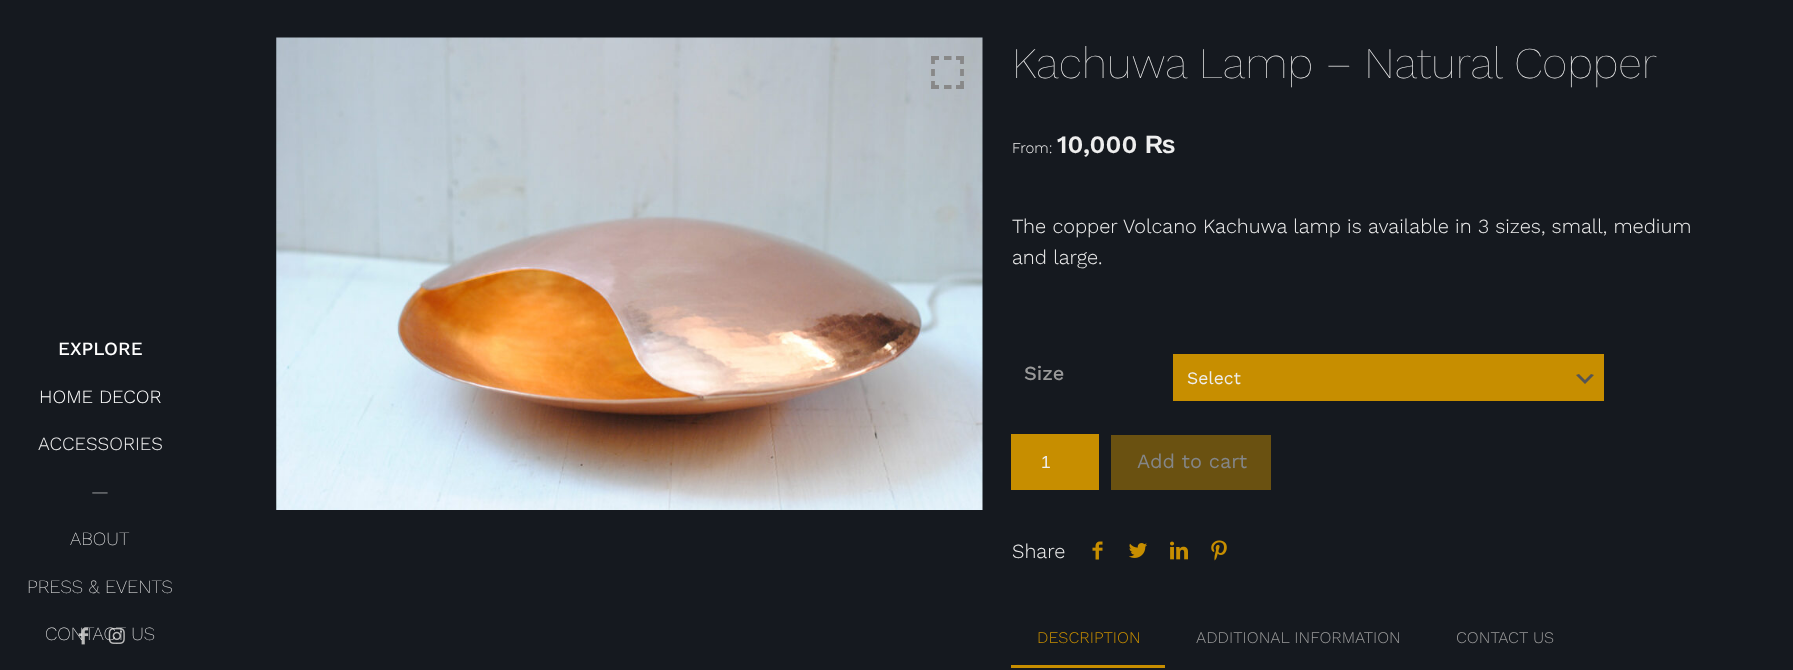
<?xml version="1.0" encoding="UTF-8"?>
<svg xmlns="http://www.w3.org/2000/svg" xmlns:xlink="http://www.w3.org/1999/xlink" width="1793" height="670">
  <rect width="100%" height="100%" fill="#15191f" />
  <image x="78" y="627" width="11" height="18" xlink:href="image1.png" />
  <image x="108" y="627" width="17" height="17" xlink:href="image2.png" />
  <image x="276" y="37" width="707" height="473" xlink:href="image3.png" />
  <path d="M 931 58 h 8 m 5 0 h 7.5 m 4.5 0 h 8 m -2 -2 v 8 m 0 5 v 7 m 0 5 v 8 m -31 -2 h 8 m 5 0 h 7.5 m 4.5 0 h 8 m -31 -31 v 8 m 0 5 v 7 m 0 5 v 8" fill="none" stroke="#888888" stroke-width="3.8" />
  <rect x="1173" y="354" width="431" height="47" fill="#c78e00" />
  <path d="M 1579 374 l 6 6 l 6 -6 l 3 1 l -9 9 l -9 -9 z" fill="#555555" />
  <rect x="1011" y="434" width="88" height="56" fill="#c78e00" />
  <rect x="1111" y="435" width="160" height="55" fill="#6a5111" />
  <image x="1092" y="541" width="11" height="19" xlink:href="image4.png" />
  <image x="1129" y="543" width="18" height="15" xlink:href="image5.png" />
  <image x="1170" y="541" width="18" height="19" xlink:href="image6.png" />
  <image x="1211" y="540" width="16" height="21" xlink:href="image7.png" />
  <rect x="1011" y="665" width="154" height="3" fill="#c78e00" />
  <text x="58" y="355" style="font-family: Work Sans; font-size: 18.75px; font-weight: 500; fill: #ffffff">EXPLORE</text>
  <text x="39" y="403" style="font-family: Work Sans; font-size: 18.75px; font-weight: 300; fill: #ffffff">HOME DECOR</text>
  <text x="38" y="450" style="font-family: Work Sans; font-size: 18.75px; font-weight: 300; fill: #eeeeee">ACCESSORIES</text>
  <text x="91" y="498" style="font-family: Work Sans; font-size: 18.75px; font-weight: 200; fill: #eeeeee">—</text>
  <text x="70" y="545" style="font-family: Work Sans; font-size: 18.75px; font-weight: 200; fill: #eeeeee">ABOUT</text>
  <text x="27" y="593" style="font-family: Work Sans; font-size: 18.75px; font-weight: 200; fill: #eeeeee">PRESS &amp; EVENTS</text>
  <text x="45" y="640" style="font-family: Work Sans; font-size: 18.75px; font-weight: 200; fill: #eeeeee">CONTACT US</text>
  <text x="1012" y="78" style="font-family: Work Sans; font-size: 43.75px; font-weight: 100; fill: #eeeeee">Kachuwa Lamp – Natural Copper</text>
  <text x="1012" y="153" style="font-family: Work Sans; font-size: 15px; font-weight: 300; fill: #eeeeee">From:</text>
  <text x="1057" y="153" style="font-family: Work Sans; font-size: 25px; font-weight: 600; fill: #eeeeee">10,000</text>
  <text x="1145" y="153" style="font-family: Liberation Sans; font-size: 25px; font-weight: bold; fill: #eeeeee">₨</text>
  <text x="1012" y="233" style="font-family: Work Sans; font-size: 20px; font-weight: 300; fill: #eeeeee">The copper Volcano Kachuwa lamp is available in 3 sizes, small, medium</text>
  <text x="1012" y="264" style="font-family: Work Sans; font-size: 20px; font-weight: 300; fill: #eeeeee">and large.</text>
  <text x="1024" y="380" style="font-family: Work Sans; font-size: 20px; font-weight: 500; fill: #999999">Size</text>
  <text x="1187" y="384" style="font-family: Work Sans; font-size: 17.5px; fill: #eeeeee">Select</text>
  <text x="1041" y="468" style="font-family: Liberation Sans; font-size: 17.5px; fill: #eeeeee">1</text>
  <text x="1137" y="468" style="font-family: Work Sans; font-size: 20px; fill: #848689">Add to cart</text>
  <text x="1012" y="558" style="font-family: Work Sans; font-size: 20px; font-weight: 300; fill: #eeeeee">Share</text>
  <text x="1037" y="643" style="font-family: Work Sans; font-size: 16.25px; font-weight: 300; fill: #c78e00">DESCRIPTION</text>
  <text x="1196" y="643" style="font-family: Work Sans; font-size: 16.25px; font-weight: 300; fill: #999999">ADDITIONAL INFORMATION</text>
  <text x="1456" y="643" style="font-family: Work Sans; font-size: 16.25px; font-weight: 300; fill: #999999">CONTACT US</text>
</svg>
